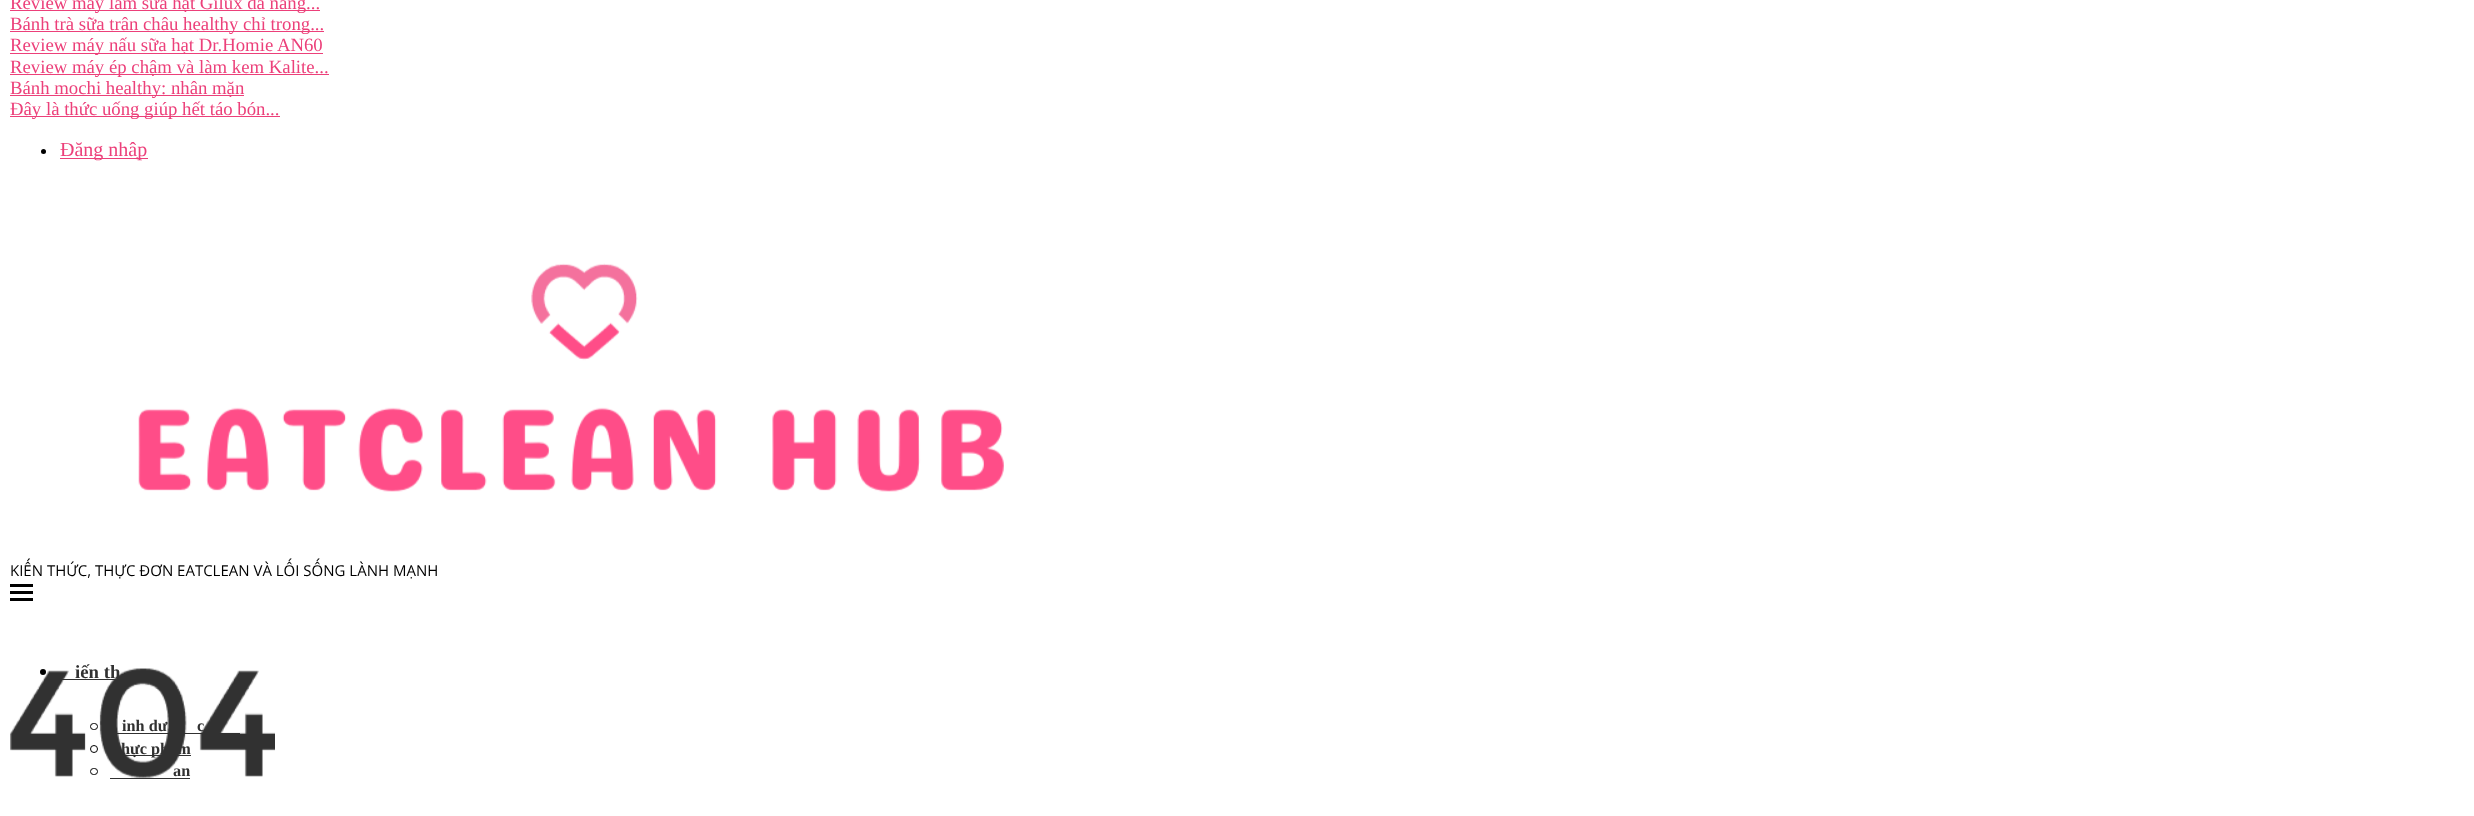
<?xml version="1.0" encoding="UTF-8"?>
<svg xmlns="http://www.w3.org/2000/svg" xmlns:xlink="http://www.w3.org/1999/xlink" width="2474" height="816">
  <rect width="100%" height="100%" fill="#ffffff" />
  <rect x="10" y="10" width="310" height="1" fill="#ec407a" />
  <rect x="10" y="31" width="314" height="1" fill="#ec407a" />
  <rect x="10" y="53" width="313" height="1" fill="#ec407a" />
  <rect x="10" y="74" width="319" height="1" fill="#ec407a" />
  <rect x="10" y="95" width="234" height="1" fill="#ec407a" />
  <rect x="10" y="116" width="270" height="1" fill="#ec407a" />
  <circle cx="43.5" cy="151.5" r="2.5" fill="#000000" />
  <rect x="60" y="158" width="88" height="1" fill="#ec407a" />
  <image x="138" y="263" width="866" height="229" xlink:href="image1.png" />
  <rect x="10" y="584" width="23" height="3" fill="#000000" />
  <rect x="10" y="591" width="23" height="3" fill="#000000" />
  <rect x="10" y="598" width="23" height="3" fill="#000000" />
  <circle cx="43" cy="672" r="3" fill="#000000" />
  <rect x="60" y="679" width="56" height="1" fill="#313131" />
  <rect x="90.5" y="723.5" width="7" height="6" rx="3" fill="none" stroke="#000000" />
  <rect x="110" y="733" width="130" height="1" fill="#313131" />
  <circle cx="94" cy="749" r="3.5" fill="none" stroke="#000000" />
  <rect x="124" y="755" width="67" height="1" fill="#313131" />
  <rect x="90.5" y="768.5" width="7" height="6" rx="3" fill="none" stroke="#000000" />
  <rect x="110" y="778" width="80" height="1" fill="#313131" />
  <text x="10" y="9" style="font-family: Liberation Serif; font-size: 18.75px; fill: #ec407a">Review máy làm sữa hạt Gilux đa năng...</text>
  <text x="10" y="30" style="font-family: Liberation Serif; font-size: 18.75px; fill: #ec407a">Bánh trà sữa trân châu healthy chỉ trong...</text>
  <text x="10" y="51" style="font-family: Liberation Serif; font-size: 18.75px; fill: #ec407a">Review máy nấu sữa hạt Dr.Homie AN60</text>
  <text x="10" y="73" style="font-family: Liberation Serif; font-size: 18.75px; fill: #ec407a">Review máy ép chậm và làm kem Kalite...</text>
  <text x="10" y="94" style="font-family: Liberation Serif; font-size: 18.75px; fill: #ec407a">Bánh mochi healthy: nhân mặn</text>
  <text x="10" y="115" style="font-family: Liberation Serif; font-size: 18.75px; fill: #ec407a">Đây là thức uống giúp hết táo bón...</text>
  <text x="60" y="156" style="font-family: Liberation Serif; font-size: 20px; fill: #ec407a">Đăng nhập</text>
  <text x="10" y="576" style="font-family: Open Sans; font-size: 15px; fill: #000000">KIẾN THỨC, THỰC ĐƠN EATCLEAN VÀ LỐI SỐNG LÀNH MẠNH</text>
  <text x="75" y="678" style="font-family: Liberation Serif; font-size: 18.75px; font-weight: bold; fill: #313131">iến th</text>
  <text x="122" y="731" style="font-family: Liberation Serif; font-size: 16.25px; font-weight: bold; fill: #313131">inh dư</text>
  <text x="197" y="731" style="font-family: Liberation Serif; font-size: 16.25px; font-weight: bold; fill: #313131">c</text>
  <text x="121" y="754" style="font-family: Liberation Serif; font-size: 16.25px; font-weight: bold; fill: #313131">hực phẩm</text>
  <text x="173" y="776" style="font-family: Liberation Serif; font-size: 16.25px; font-weight: bold; fill: #313131">an</text>
  <image x="10" y="668" width="265" height="110" xlink:href="image2.png" />
</svg>
